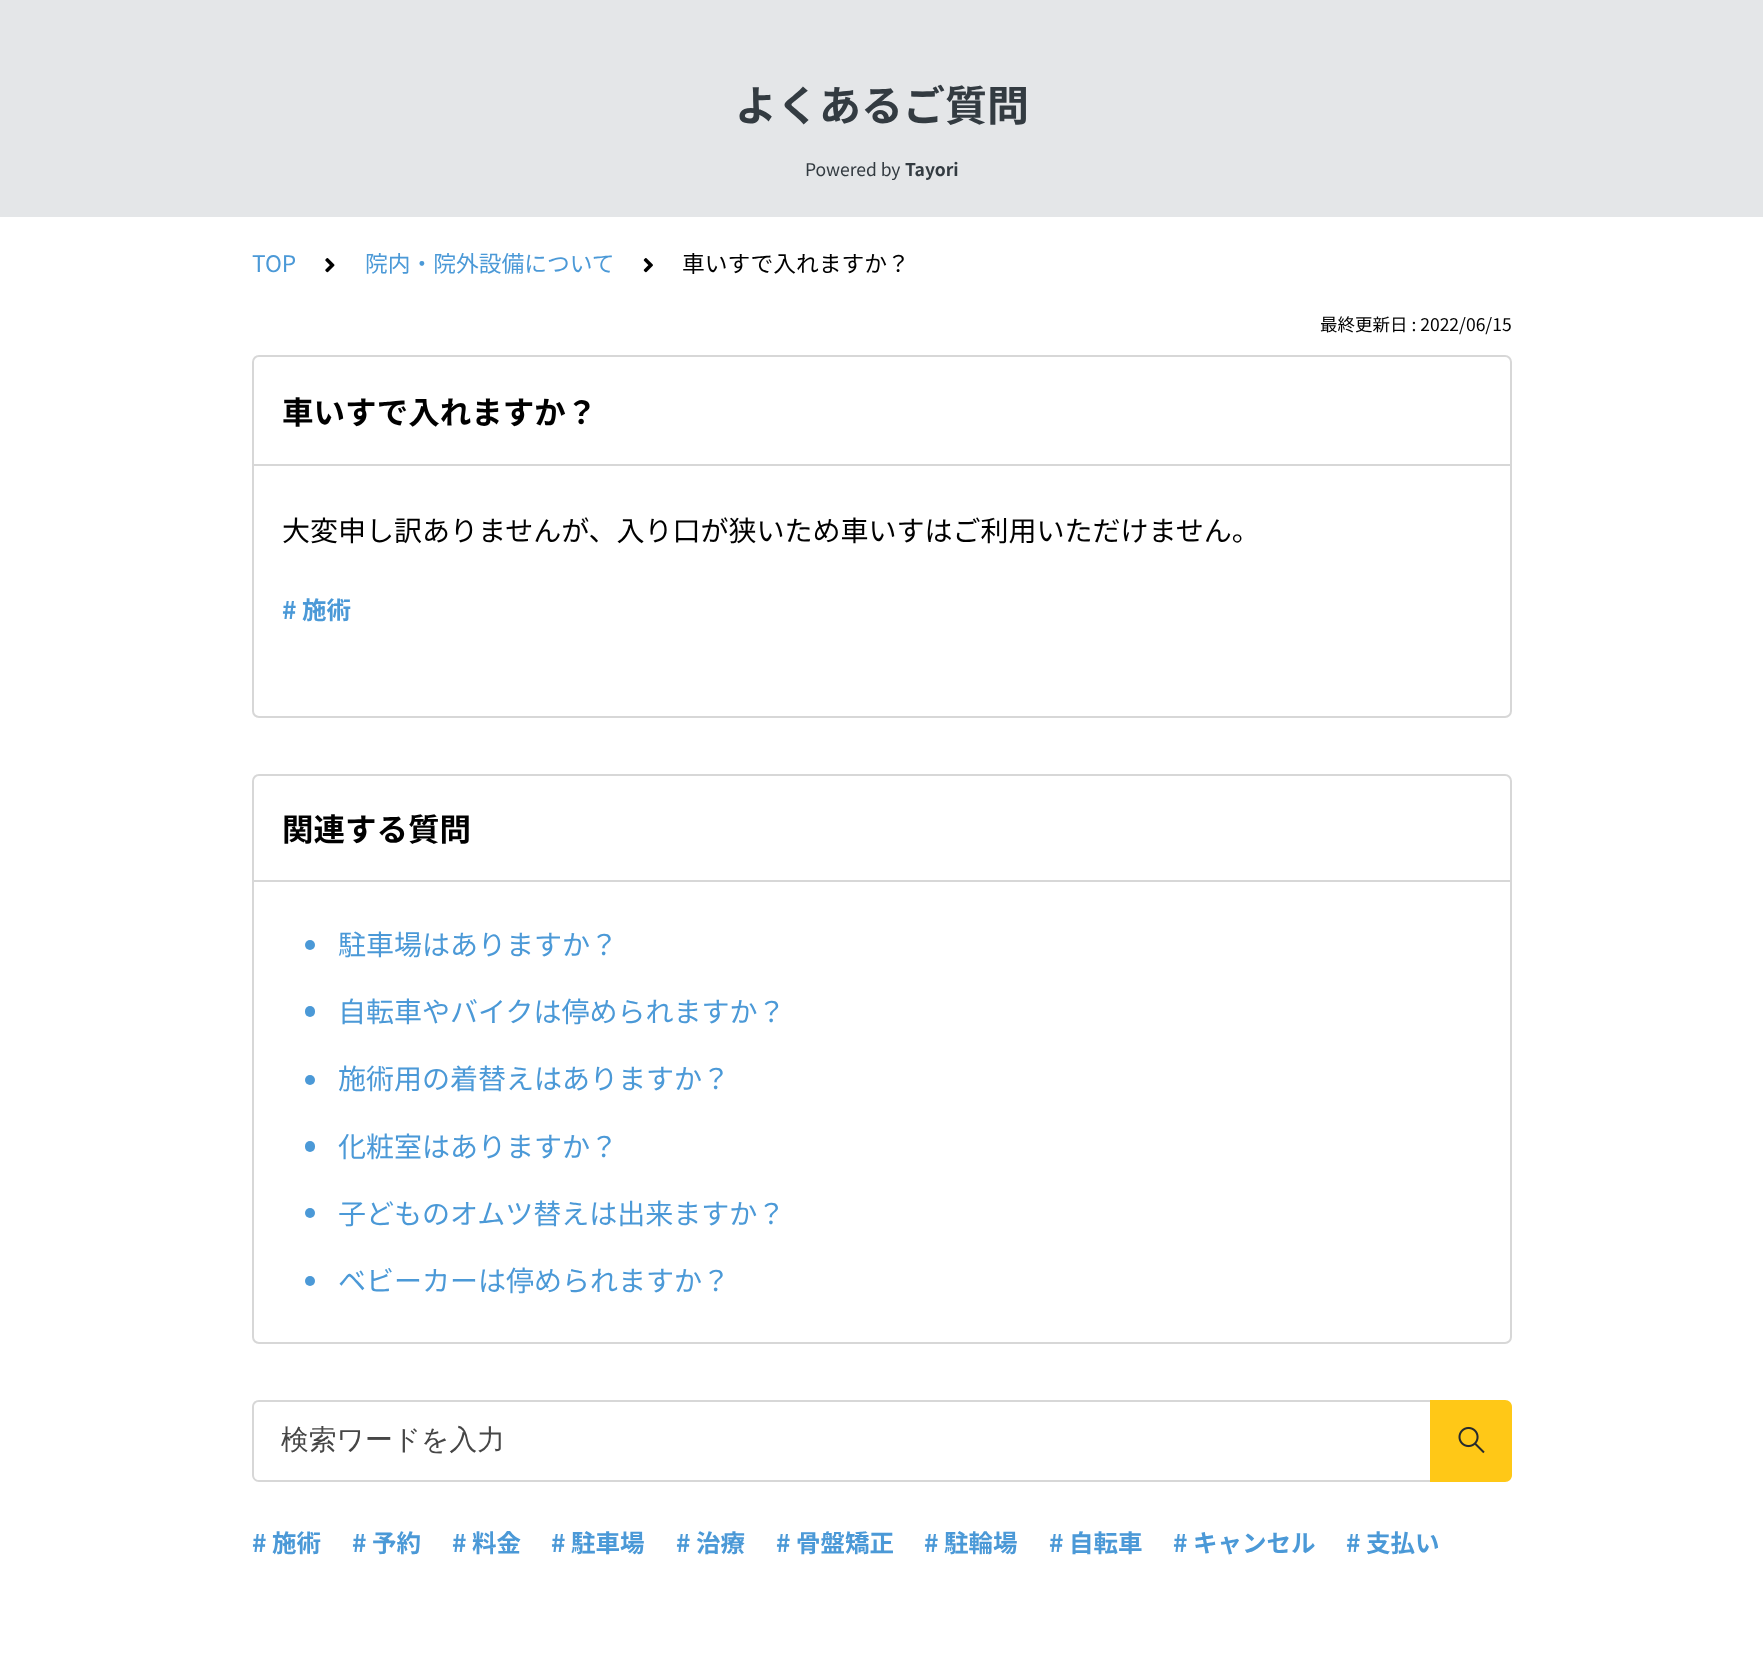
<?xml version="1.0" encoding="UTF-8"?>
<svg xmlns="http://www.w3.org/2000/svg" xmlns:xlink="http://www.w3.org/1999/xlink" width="1763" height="1655">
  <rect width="100%" height="100%" fill="#ffffff" />
  <rect width="1763" height="217" fill="#e4e6e8" />
  <image x="325" y="258" width="10" height="15" xlink:href="image1.png" />
  <image x="643" y="258" width="10" height="15" xlink:href="image2.png" />
  <rect x="253" y="356" width="1258" height="361" rx="6" fill="none" stroke="#d7d7d7" stroke-width="2" />
  <rect x="254" y="464" width="1256" height="2" fill="#d7d7d7" />
  <rect x="253" y="775" width="1258" height="568" rx="6" fill="none" stroke="#d7d7d7" stroke-width="2" />
  <rect x="254" y="880" width="1256" height="2" fill="#d7d7d7" />
  <circle cx="310" cy="945" r="5" fill="#4b99d7" />
  <rect x="305" y="1006" width="10" height="11" rx="5" fill="#4b99d7" />
  <circle cx="310" cy="1080" r="5" fill="#4b99d7" />
  <rect x="305" y="1141" width="10" height="11" rx="5" fill="#4b99d7" />
  <circle cx="310" cy="1213" r="5" fill="#4b99d7" />
  <circle cx="310" cy="1281" r="5" fill="#4b99d7" />
  <path d="M 259 1400 h 1171 v 82 h -1171 c -4 0 -7 -3 -7 -7 v -68 c 0 -4 3 -7 7 -7 z m 0 2 h 1171 v 78 h -1171 c -3 0 -5 -2 -5 -5 v -68 c 0 -3 2 -5 5 -5 z" fill="#d7d7d7" fill-rule="evenodd" />
  <path d="M 1430 1400 h 75 c 4 0 7 3 7 7 v 68 c 0 4 -3 7 -7 7 h -75 z" fill="#ffc817" />
  <image x="1458" y="1426" width="27" height="28" xlink:href="image3.png" />
  <text x="735" y="121" style="font-family: Noto Sans JP; font-size: 42px; font-weight: bold; fill: #333b41">よくあるご質問</text>
  <text x="805" y="176" style="font-family: Noto Sans JP; font-size: 17.5px; fill: #333b41">Powered by</text>
  <text x="905" y="176" style="font-family: Noto Sans JP; font-size: 17.5px; font-weight: bold; fill: #333b41">Tayori</text>
  <text x="252" y="272" style="font-family: Noto Sans JP; font-size: 22.75px; fill: #4b99d7">TOP</text>
  <text x="365" y="272" style="font-family: Noto Sans JP; font-size: 22.75px; fill: #4b99d7">院内・院外設備について</text>
  <text x="682" y="272" style="font-family: Noto Sans JP; font-size: 22.75px; fill: #000000">車いすで入れますか？</text>
  <text x="1320" y="331" style="font-family: Noto Sans JP; font-size: 17.5px; fill: #000000">最終更新日 : 2022/06/15</text>
  <text x="282" y="424" style="font-family: Noto Sans JP; font-size: 31.5px; font-weight: bold; fill: #000000">車いすで入れますか？</text>
  <text x="282" y="541" style="font-family: Noto Sans JP; font-size: 28px; fill: #000000">大変申し訳ありませんが、入り口が狭いため車いすはご利用いただけません。</text>
  <text x="282" y="619" style="font-family: Noto Sans JP; font-size: 24.5px; font-weight: bold; fill: #4b99d7"># 施術</text>
  <text x="282" y="841" style="font-family: Noto Sans JP; font-size: 31.5px; font-weight: bold; fill: #000000">関連する質問</text>
  <text x="338" y="955" style="font-family: Noto Sans JP; font-size: 28px; fill: #4b99d7">駐車場はありますか？</text>
  <text x="338" y="1022" style="font-family: Noto Sans JP; font-size: 28px; fill: #4b99d7">自転車やバイクは停められますか？</text>
  <text x="338" y="1089" style="font-family: Noto Sans JP; font-size: 28px; fill: #4b99d7">施術用の着替えはありますか？</text>
  <text x="338" y="1157" style="font-family: Noto Sans JP; font-size: 28px; fill: #4b99d7">化粧室はありますか？</text>
  <text x="338" y="1224" style="font-family: Noto Sans JP; font-size: 28px; fill: #4b99d7">子どものオムツ替えは出来ますか？</text>
  <text x="338" y="1291" style="font-family: Noto Sans JP; font-size: 28px; fill: #4b99d7">ベビーカーは停められますか？</text>
  <text x="281" y="1449" style="font-family: WenQuanYi Zen Hei; font-size: 27.75px; font-weight: 500; fill: #464646">検索ワードを入力</text>
  <text x="252" y="1552" style="font-family: Noto Sans JP; font-size: 24.5px; font-weight: bold; fill: #4b99d7"># 施術</text>
  <text x="352" y="1552" style="font-family: Noto Sans JP; font-size: 24.5px; font-weight: bold; fill: #4b99d7"># 予約</text>
  <text x="452" y="1552" style="font-family: Noto Sans JP; font-size: 24.5px; font-weight: bold; fill: #4b99d7"># 料金</text>
  <text x="551" y="1552" style="font-family: Noto Sans JP; font-size: 24.5px; font-weight: bold; fill: #4b99d7"># 駐車場</text>
  <text x="676" y="1552" style="font-family: Noto Sans JP; font-size: 24.5px; font-weight: bold; fill: #4b99d7"># 治療</text>
  <text x="776" y="1552" style="font-family: Noto Sans JP; font-size: 24.5px; font-weight: bold; fill: #4b99d7"># 骨盤矯正</text>
  <text x="924" y="1552" style="font-family: Noto Sans JP; font-size: 24.5px; font-weight: bold; fill: #4b99d7"># 駐輪場</text>
  <text x="1049" y="1552" style="font-family: Noto Sans JP; font-size: 24.5px; font-weight: bold; fill: #4b99d7"># 自転車</text>
  <text x="1173" y="1552" style="font-family: Noto Sans JP; font-size: 24.5px; font-weight: bold; fill: #4b99d7"># キャンセル</text>
  <text x="1346" y="1552" style="font-family: Noto Sans JP; font-size: 24.5px; font-weight: bold; fill: #4b99d7"># 支払い</text>
</svg>
